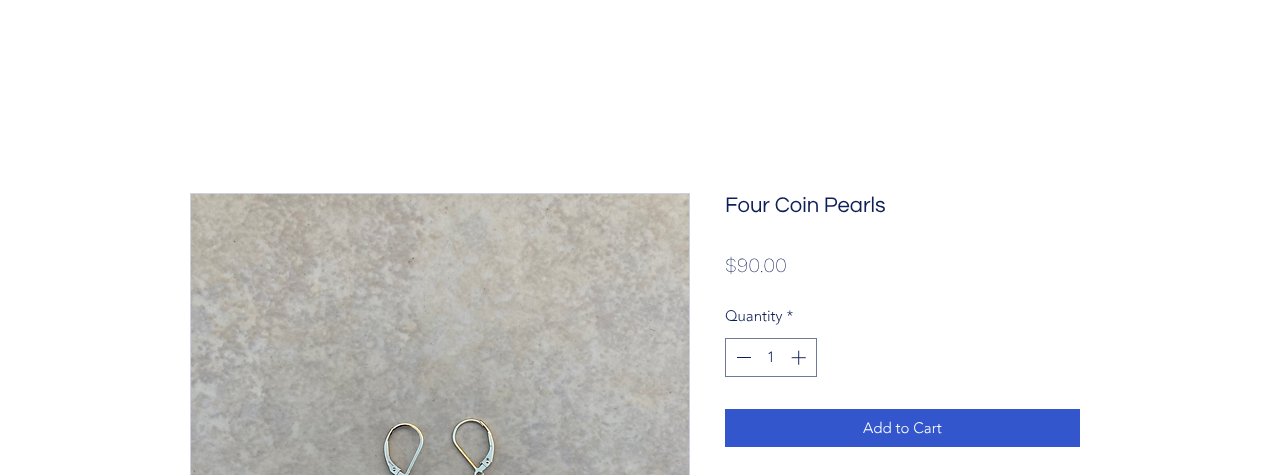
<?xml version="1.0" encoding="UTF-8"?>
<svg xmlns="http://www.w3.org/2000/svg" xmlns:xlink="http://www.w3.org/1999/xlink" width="1269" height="475">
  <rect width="100%" height="100%" fill="#ffffff" />
  <rect x="190.5" y="193.5" width="499" height="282" fill="none" stroke="#cfd2de" />
  <image x="191" y="194" width="498" height="281" xlink:href="image1.png" />
  <rect x="725.5" y="338.5" width="91" height="38" fill="none" stroke="#6e799b" />
  <rect x="737" y="357" width="14" height="1" fill="#0e1f58" />
  <image x="791" y="350" width="15" height="15" xlink:href="image2.png" />
  <rect x="725" y="409" width="355" height="38" fill="#3356cc" />
  <text x="725" y="212" style="font-family: Questrial; font-size: 22px; fill: #0e1f58">Four Coin Pearls</text>
  <text x="725" y="272" style="font-family: Work Sans; font-size: 20px; font-weight: 200; fill: #0e1f58">$90.00</text>
  <text x="725" y="321" style="font-family: 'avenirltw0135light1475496'; font-size: 15px; font-weight: 300; fill: #0e1f58">Quantity *</text>
  <text x="767" y="362" style="font-family: 'avenirltw0135light1475496'; font-size: 15px; font-weight: 300; fill: #0e1f58">1</text>
  <text x="863" y="433" style="font-family: 'avenirltw0135light1475496'; font-size: 15px; font-weight: 300; fill: #ffffff">Add to Cart</text>
</svg>
